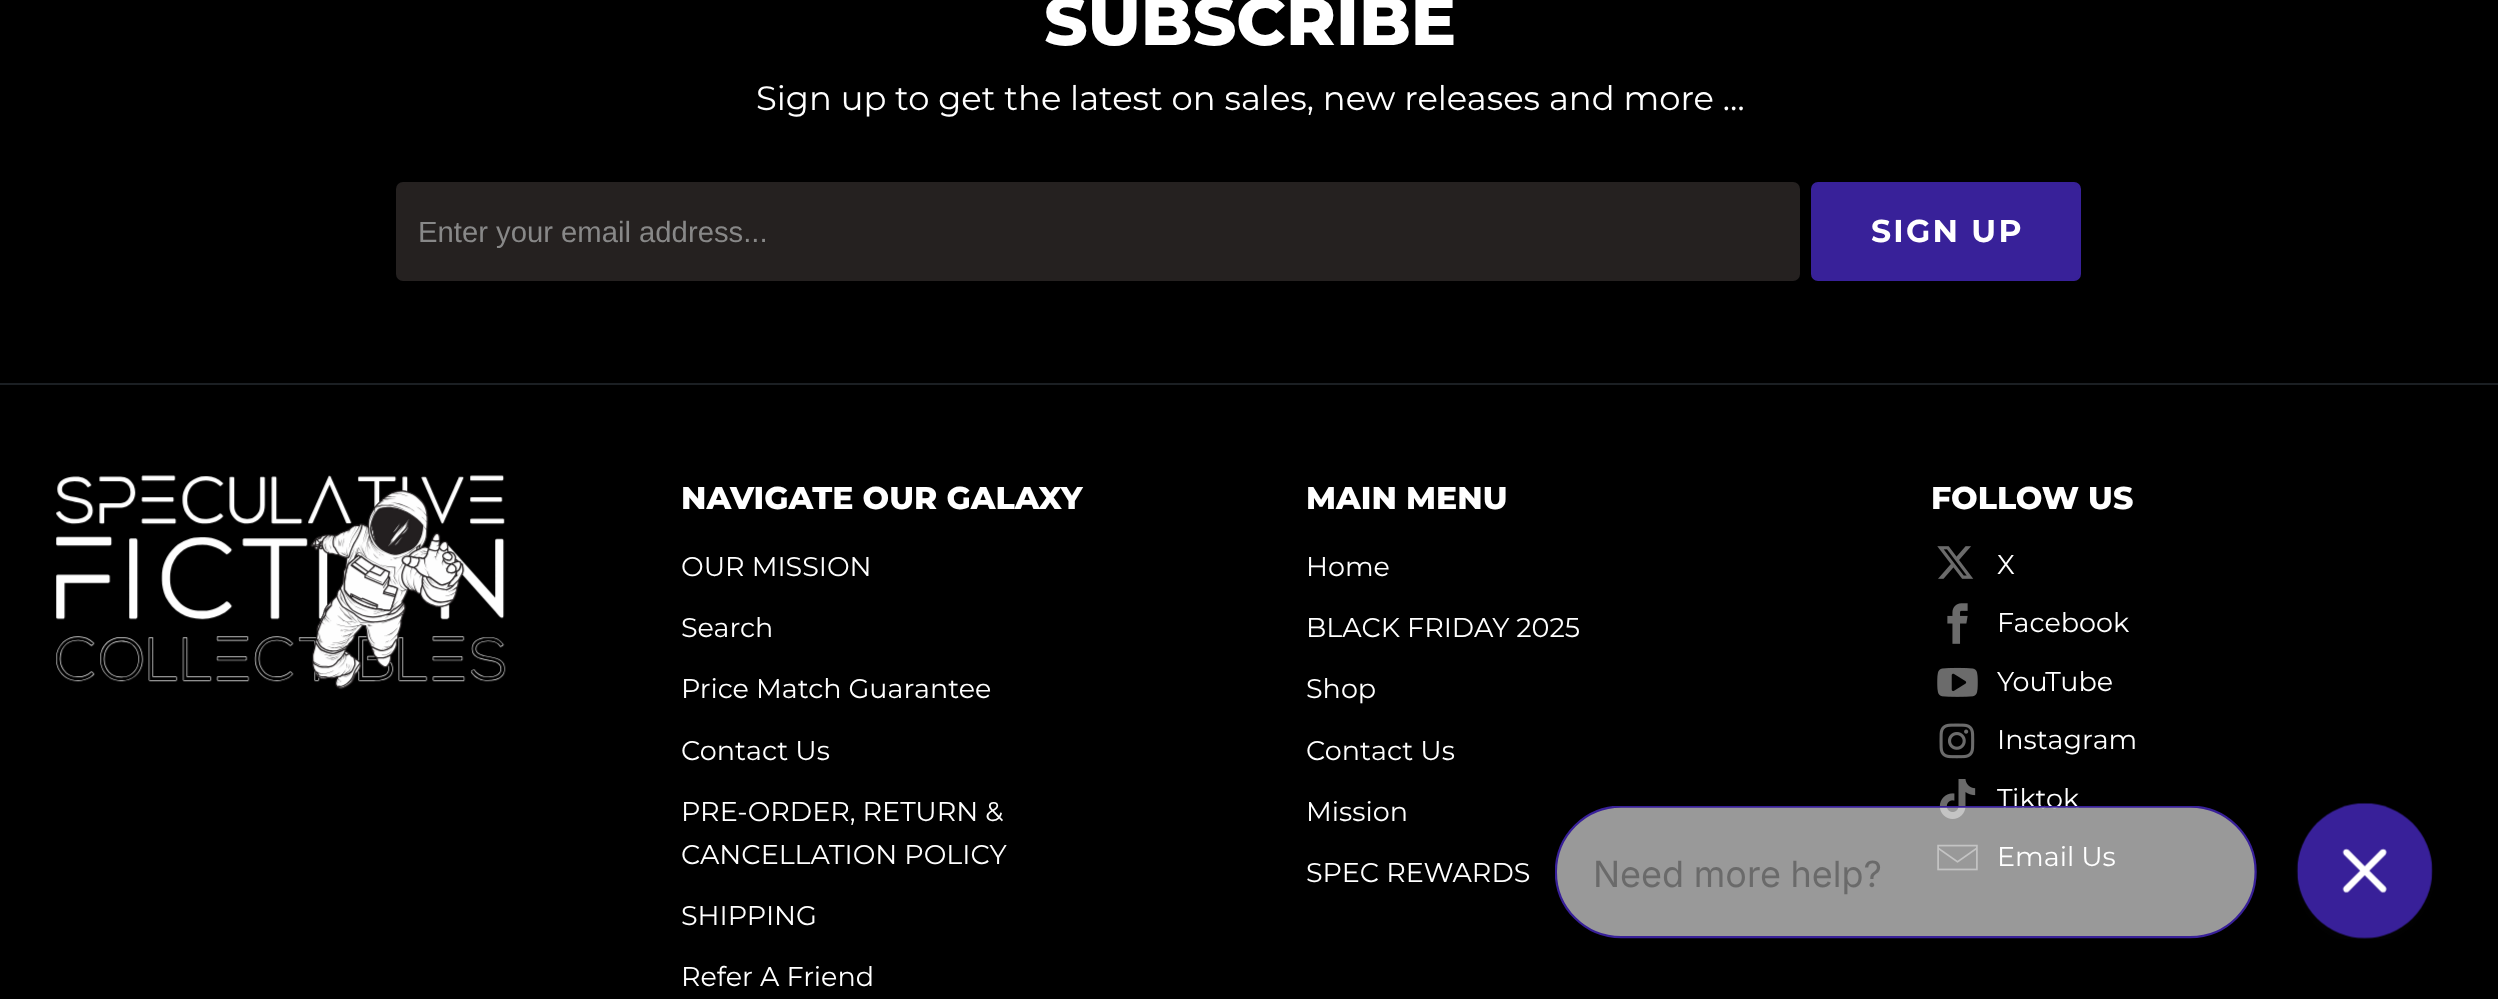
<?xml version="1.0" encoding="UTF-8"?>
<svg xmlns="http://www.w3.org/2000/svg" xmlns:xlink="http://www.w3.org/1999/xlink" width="2498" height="999">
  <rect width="100%" height="100%" fill="#000000" />
  <rect x="396" y="182" width="1404" height="99" rx="7" fill="#252120" />
  <rect x="1812" y="183" width="268" height="97" rx="6" fill="#382199" stroke="#382199" stroke-width="2" />
  <rect y="383" width="2498" height="2" fill="#1b1f23" />
  <image x="56" y="475" width="450" height="215" xlink:href="image1.png" />
  <image x="1937" y="546" width="37" height="33" xlink:href="image2.png" />
  <image x="1947" y="603" width="21" height="41" xlink:href="image3.png" />
  <image x="1937" y="667" width="41" height="30" xlink:href="image4.png" />
  <image x="1939" y="723" width="36" height="36" xlink:href="image5.png" />
  <image x="1939" y="779" width="37" height="40" xlink:href="image6.png" />
  <image x="1937" y="844" width="41" height="27" xlink:href="image7.png" />
  <text x="1044" y="45" style="font-family: Montserrat; font-size: 67.5px; font-weight: 800; fill: #ffffff">SUBSCRIBE</text>
  <text x="756" y="110" style="font-family: Montserrat; font-size: 33.75px; fill: #ffffff">Sign up to get the latest on sales, new releases and more …</text>
  <text x="418" y="242" style="font-family: Liberation Sans; font-size: 29.25px; fill: #888888">Enter your email address...</text>
  <text x="1871" y="242" style="font-family: Montserrat; font-size: 31.5px; font-weight: bold; letter-spacing: 2.25px; fill: #ffffff">SIGN UP</text>
  <text x="681" y="509" style="font-family: Montserrat; font-size: 31.5px; font-weight: 800; fill: #ffffff">NAVIGATE OUR GALAXY</text>
  <text x="681" y="576" style="font-family: Montserrat; font-size: 27px; fill: #ffffff">OUR MISSION</text>
  <text x="681" y="637" style="font-family: Montserrat; font-size: 27px; fill: #ffffff">Search</text>
  <text x="681" y="698" style="font-family: Montserrat; font-size: 27px; fill: #ffffff">Price Match Guarantee</text>
  <text x="681" y="760" style="font-family: Montserrat; font-size: 27px; fill: #ffffff">Contact Us</text>
  <text x="681" y="821" style="font-family: Montserrat; font-size: 27px; fill: #ffffff">PRE-ORDER, RETURN &amp;</text>
  <text x="681" y="864" style="font-family: Montserrat; font-size: 27px; fill: #ffffff">CANCELLATION POLICY</text>
  <text x="681" y="925" style="font-family: Montserrat; font-size: 27px; fill: #ffffff">SHIPPING</text>
  <text x="681" y="986" style="font-family: Montserrat; font-size: 27px; fill: #ffffff">Refer A Friend</text>
  <text x="1306" y="509" style="font-family: Montserrat; font-size: 31.5px; font-weight: 800; fill: #ffffff">MAIN MENU</text>
  <text x="1306" y="576" style="font-family: Montserrat; font-size: 27px; fill: #ffffff">Home</text>
  <text x="1306" y="637" style="font-family: Montserrat; font-size: 27px; fill: #ffffff">BLACK FRIDAY 2025</text>
  <text x="1306" y="698" style="font-family: Montserrat; font-size: 27px; fill: #ffffff">Shop</text>
  <text x="1306" y="760" style="font-family: Montserrat; font-size: 27px; fill: #ffffff">Contact Us</text>
  <text x="1306" y="821" style="font-family: Montserrat; font-size: 27px; fill: #ffffff">Mission</text>
  <text x="1306" y="882" style="font-family: Montserrat; font-size: 27px; fill: #ffffff">SPEC REWARDS</text>
  <text x="1931" y="509" style="font-family: Montserrat; font-size: 31.5px; font-weight: 800; fill: #ffffff">FOLLOW US</text>
  <text x="1997" y="574" style="font-family: Montserrat; font-size: 27px; fill: #ffffff">X</text>
  <text x="1997" y="632" style="font-family: Montserrat; font-size: 27px; fill: #ffffff">Facebook</text>
  <text x="1997" y="691" style="font-family: Montserrat; font-size: 27px; fill: #ffffff">YouTube</text>
  <text x="1997" y="749" style="font-family: Montserrat; font-size: 27px; fill: #ffffff">Instagram</text>
  <text x="1997" y="808" style="font-family: Montserrat; font-size: 27px; fill: #ffffff">Tiktok</text>
  <text x="1997" y="866" style="font-family: Montserrat; font-size: 27px; fill: #ffffff">Email Us</text>
  <image x="1555" y="802" width="878" height="137" xlink:href="image8.png" />
</svg>
